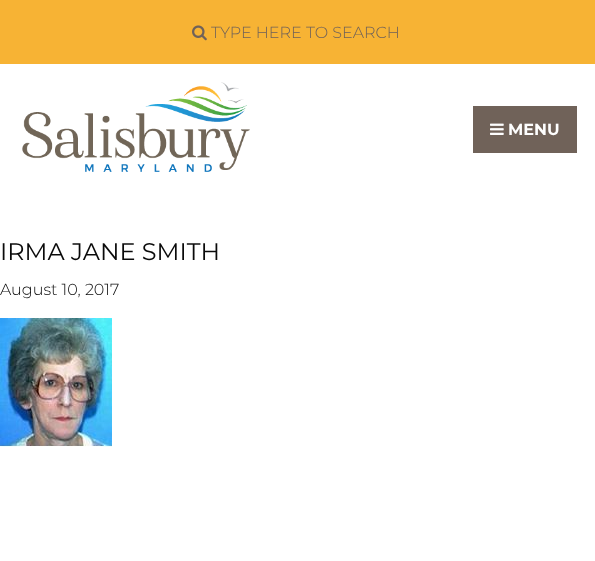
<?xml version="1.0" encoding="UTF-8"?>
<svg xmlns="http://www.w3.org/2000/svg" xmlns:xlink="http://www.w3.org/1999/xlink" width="595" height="561">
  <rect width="100%" height="100%" fill="#ffffff" />
  <rect width="595" height="64" fill="#f7b334" />
  <image x="192" y="25" width="15" height="16" xlink:href="image1.png" />
  <image x="22" y="82" width="228" height="90" xlink:href="image2.png" />
  <rect x="473" y="106" width="104" height="47" fill="#706259" />
  <image x="490" y="123" width="14" height="12" xlink:href="image3.png" />
  <image x="0" y="318" width="112" height="129" xlink:href="image4.png" />
  <text x="211" y="38" style="font-family: Montserrat; font-size: 16px; font-weight: 300; fill: #706259">TYPE HERE TO SEARCH</text>
  <text x="508" y="135" style="font-family: Montserrat; font-size: 16px; font-weight: bold; fill: #fefefe">MENU</text>
  <text x="0" y="260" style="font-family: Montserrat; font-size: 24px; fill: #0a0a0a">IRMA JANE SMITH</text>
  <text x="0" y="295" style="font-family: Montserrat; font-size: 16px; font-weight: 300; fill: #0a0a0a">August 10, 2017</text>
</svg>
